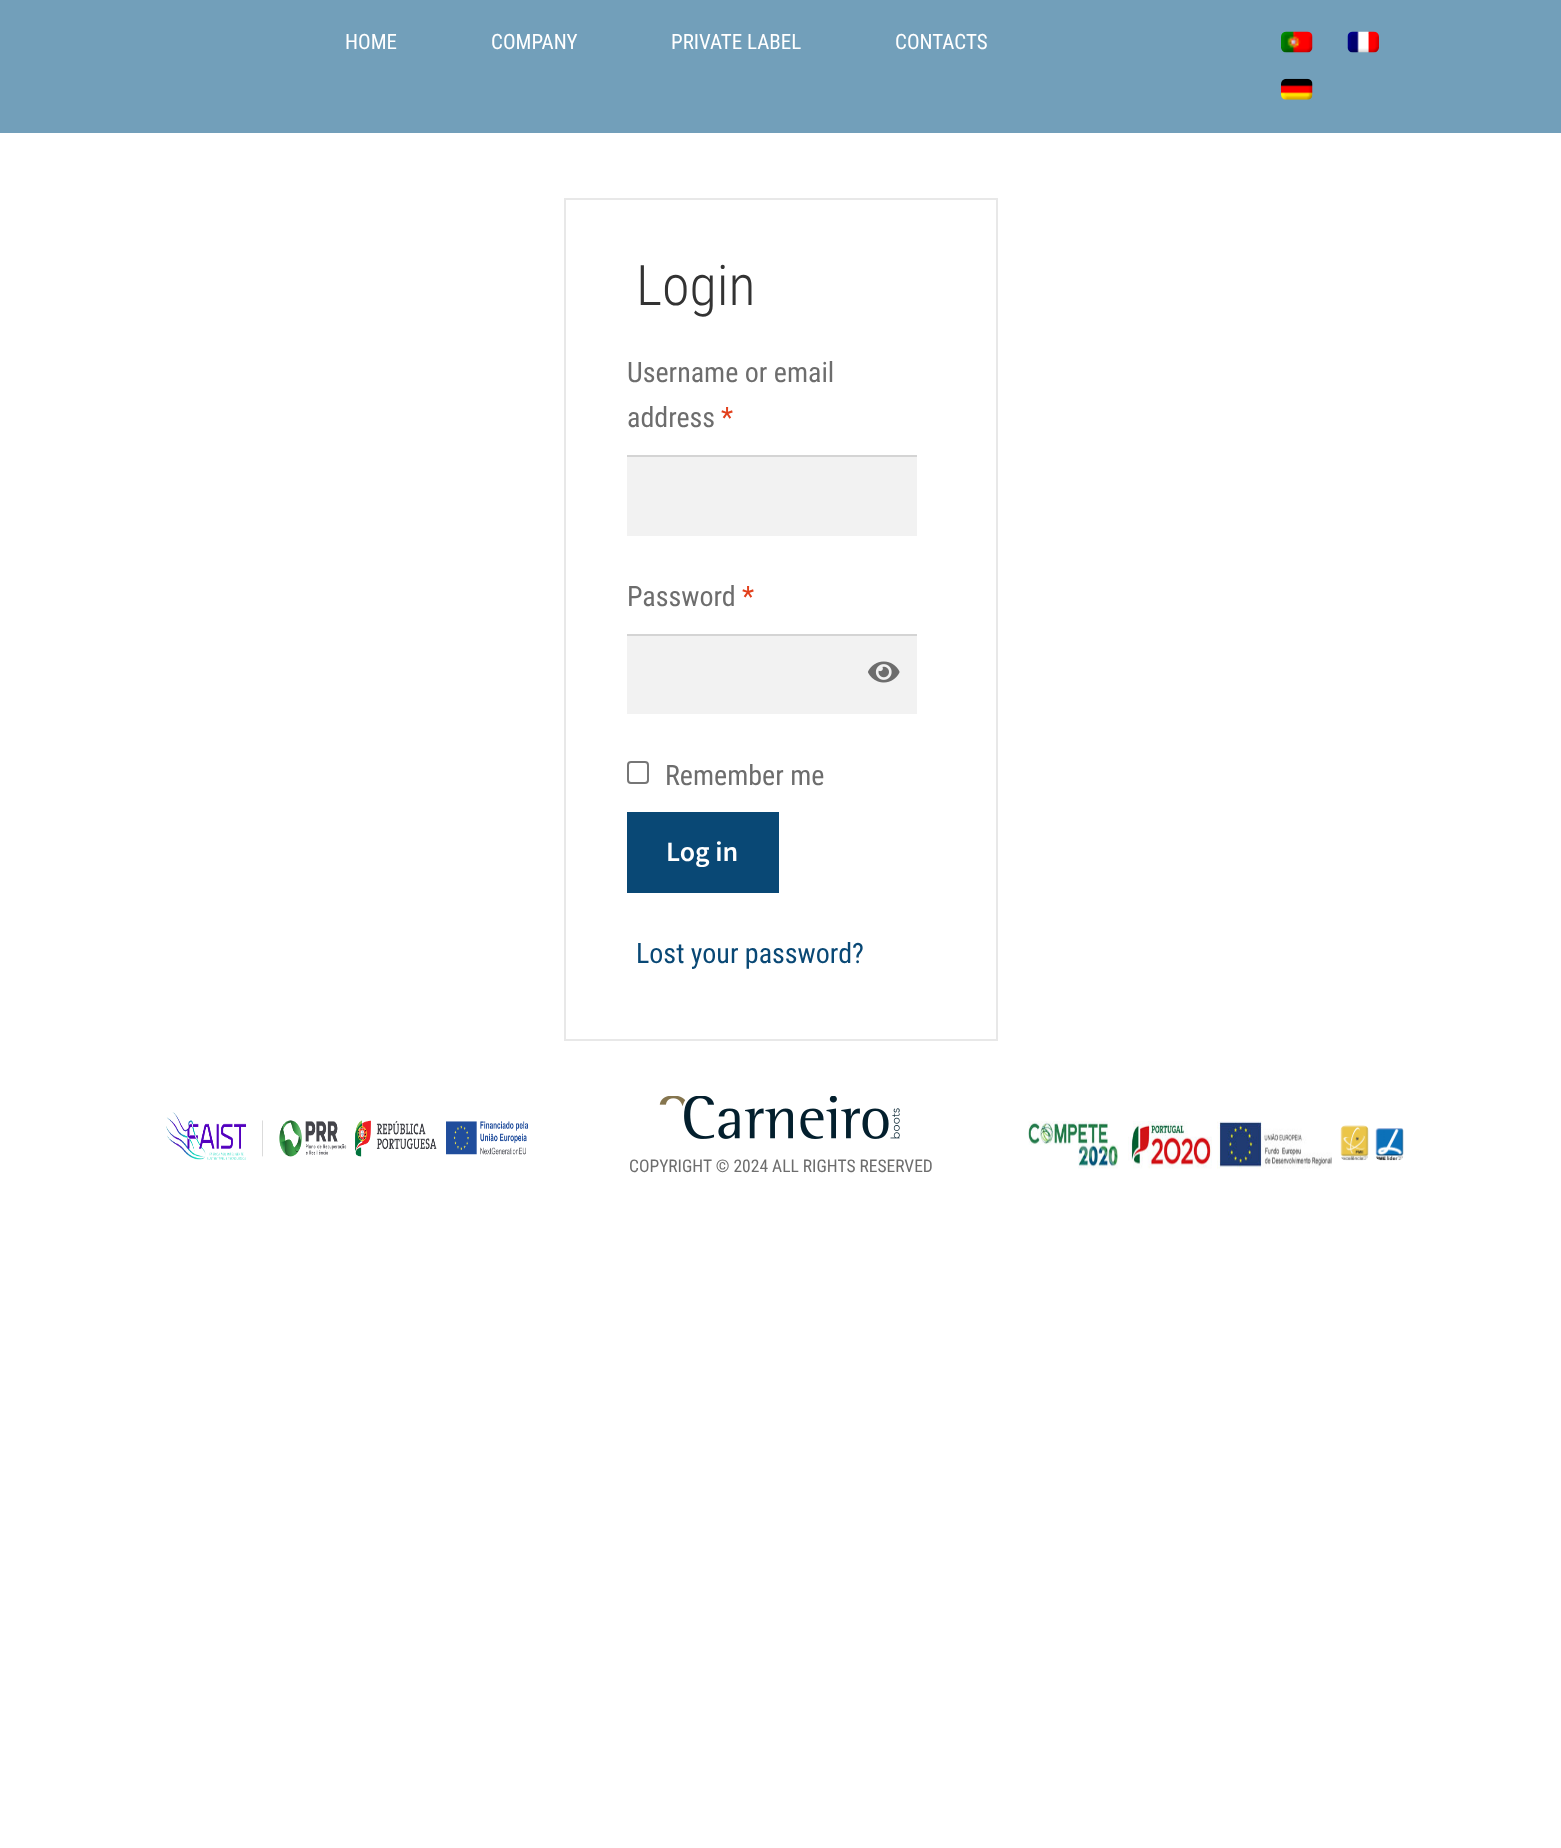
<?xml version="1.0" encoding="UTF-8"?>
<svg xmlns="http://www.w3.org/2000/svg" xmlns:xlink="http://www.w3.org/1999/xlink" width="1561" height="1848">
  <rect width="100%" height="100%" fill="#ffffff" />
  <rect width="1561" height="133" fill="#729fba" />
  <image x="1281" y="31" width="32" height="22" xlink:href="image1.png" />
  <image x="1347" y="31" width="32" height="22" xlink:href="image2.png" />
  <image x="1281" y="78" width="32" height="22" xlink:href="image3.png" />
  <rect x="565" y="199" width="432" height="841" fill="none" stroke="#e8e8e8" stroke-width="2" />
  <rect x="627" y="457" width="290" height="79" fill="#f2f2f2" />
  <rect x="627" y="455" width="290" height="2" fill="#d4d4d4" />
  <rect x="627" y="636" width="290" height="78" fill="#f2f2f2" />
  <rect x="627" y="634" width="290" height="2" fill="#d4d4d4" />
  <image x="868" y="661" width="32" height="22" xlink:href="image4.png" />
  <rect x="628" y="762" width="20" height="21" rx="3" fill="none" stroke="#767676" stroke-width="2" />
  <rect x="627" y="812" width="152" height="81" fill="#094875" />
  <image x="166" y="1112" width="362" height="48" xlink:href="image5.png" />
  <image x="659" y="1096" width="241" height="43" xlink:href="image6.png" />
  <image x="1028" y="1121" width="304" height="48" xlink:href="image7.png" />
  <image x="1340" y="1125" width="29" height="36" xlink:href="image8.png" />
  <image x="1375" y="1128" width="29" height="33" xlink:href="image9.png" />
  <text x="345" y="49" style="font-family: Roboto Condensed; font-size: 21px; fill: #ffffff">HOME</text>
  <text x="491" y="49" style="font-family: Roboto Condensed; font-size: 21px; fill: #ffffff">COMPANY</text>
  <text x="671" y="49" style="font-family: Roboto Condensed; font-size: 21px; fill: #ffffff">PRIVATE LABEL</text>
  <text x="895" y="49" style="font-family: Roboto Condensed; font-size: 21px; fill: #ffffff">CONTACTS</text>
  <text x="636" y="305" style="font-family: Roboto Condensed; font-size: 56px; font-weight: 300; fill: #333333">Login</text>
  <text x="627" y="382" style="font-family: Roboto Condensed; font-size: 28px; fill: #6d6d6d">Username or email</text>
  <text x="627" y="427" style="font-family: Roboto Condensed; font-size: 28px; fill: #6d6d6d">address</text>
  <text x="721" y="427" style="font-family: Roboto Condensed; font-size: 28px; fill: #e2401c">*</text>
  <text x="627" y="606" style="font-family: Roboto Condensed; font-size: 28px; fill: #6d6d6d">Password</text>
  <text x="742" y="606" style="font-family: Roboto Condensed; font-size: 28px; fill: #e2401c">*</text>
  <text x="665" y="785" style="font-family: Roboto Condensed; font-size: 28px; fill: #6d6d6d">Remember me</text>
  <text x="666" y="861" style="font-family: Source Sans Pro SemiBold; font-size: 28px; font-weight: 600; fill: #ffffff">Log in</text>
  <text x="636" y="963" style="font-family: Roboto Condensed; font-size: 28px; fill: #094875">Lost your password?</text>
  <text x="629" y="1172" style="font-family: Roboto Condensed; font-size: 17.5px; fill: #6d6d6d">COPYRIGHT © 2024 ALL RIGHTS RESERVED</text>
</svg>
